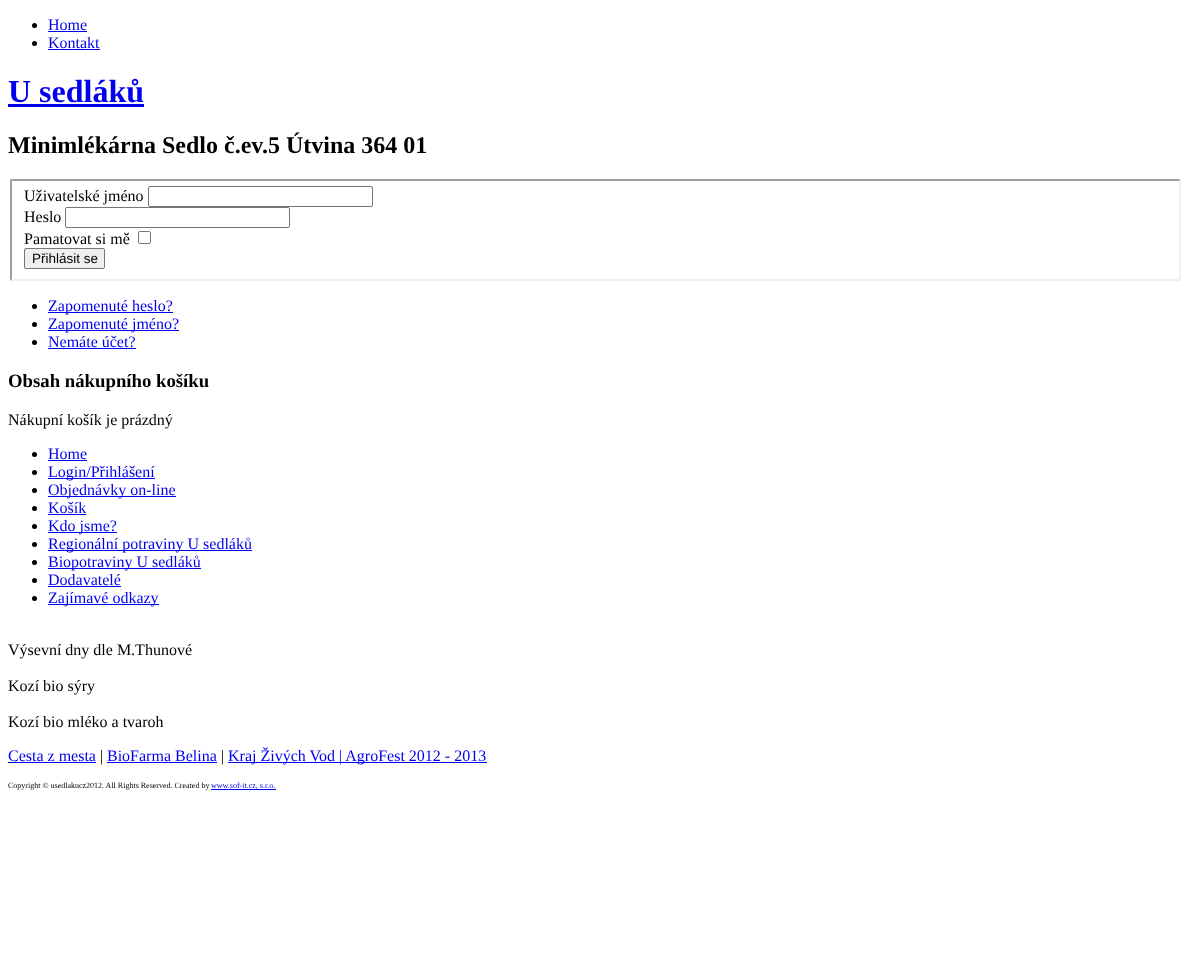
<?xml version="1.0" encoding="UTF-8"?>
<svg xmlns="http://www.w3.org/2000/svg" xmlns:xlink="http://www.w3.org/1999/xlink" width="1191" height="963">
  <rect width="100%" height="100%" fill="#ffffff" />
  <circle cx="34.5" cy="25.5" r="2.5" fill="#000000" />
  <rect x="48" y="31" width="39" height="1" fill="#0000ee" />
  <circle cx="34.5" cy="43.5" r="2.5" fill="#000000" />
  <rect x="48" y="49" width="52" height="1" fill="#0000ee" />
  <rect x="8" y="104" width="136" height="3" fill="#0000ee" />
  <path d="M 10 179 h 1171 l -2 2 h -1167 z" fill="#9f9f9f" />
  <path d="M 1181 179 v 102 l -2 -2 v -98 z" fill="#efefef" />
  <path d="M 1181 281 h -1171 l 2 -2 h 1167 z" fill="#efefef" />
  <path d="M 10 281 v -102 l 2 2 v 98 z" fill="#9f9f9f" />
  <rect x="148.5" y="186.5" width="224" height="20" rx="1.5" fill="none" stroke="#767676" />
  <rect x="65.5" y="207.5" width="224" height="20" rx="1.5" fill="none" stroke="#767676" />
  <rect x="138.5" y="231.5" width="12" height="12" rx="1.5" fill="none" stroke="#767676" />
  <rect x="24.5" y="248.5" width="80" height="20" rx="1.5" fill="#efefef" stroke="#767676" />
  <circle cx="34.5" cy="306.5" r="2.5" fill="#000000" />
  <rect x="48" y="312" width="125" height="1" fill="#0000ee" />
  <circle cx="34.5" cy="324.5" r="2.5" fill="#000000" />
  <rect x="48" y="330" width="131" height="1" fill="#0000ee" />
  <circle cx="34.5" cy="342.5" r="2.5" fill="#000000" />
  <rect x="48" y="348" width="88" height="1" fill="#0000ee" />
  <circle cx="34.5" cy="454.5" r="2.5" fill="#000000" />
  <rect x="48" y="460" width="39" height="1" fill="#0000ee" />
  <circle cx="34.5" cy="472.5" r="2.5" fill="#000000" />
  <rect x="48" y="478" width="107" height="1" fill="#0000ee" />
  <circle cx="34.5" cy="490.5" r="2.5" fill="#000000" />
  <rect x="48" y="496" width="128" height="1" fill="#0000ee" />
  <circle cx="34.5" cy="508.5" r="2.5" fill="#000000" />
  <rect x="48" y="514" width="38" height="1" fill="#0000ee" />
  <circle cx="34.5" cy="526.5" r="2.5" fill="#000000" />
  <rect x="48" y="532" width="69" height="1" fill="#0000ee" />
  <circle cx="34.5" cy="544.5" r="2.5" fill="#000000" />
  <rect x="48" y="550" width="204" height="1" fill="#0000ee" />
  <circle cx="34.5" cy="562.5" r="2.5" fill="#000000" />
  <rect x="48" y="568" width="153" height="1" fill="#0000ee" />
  <circle cx="34.5" cy="580.5" r="2.5" fill="#000000" />
  <rect x="48" y="586" width="73" height="1" fill="#0000ee" />
  <circle cx="34.5" cy="598.5" r="2.5" fill="#000000" />
  <rect x="48" y="604" width="111" height="1" fill="#0000ee" />
  <rect x="8" y="762" width="88" height="1" fill="#0000ee" />
  <rect x="107" y="762" width="110" height="1" fill="#0000ee" />
  <rect x="228" y="762" width="259" height="1" fill="#0000ee" />
  <rect x="211" y="789" width="65" height="1" fill="#0000ee" />
  <text x="48" y="30" style="font-family: Liberation Serif; font-size: 16px; fill: #0000ee">Home</text>
  <text x="48" y="48" style="font-family: Liberation Serif; font-size: 16px; fill: #0000ee">Kontakt</text>
  <text x="8" y="102" style="font-family: Liberation Serif; font-size: 32px; font-weight: bold; fill: #0000ee">U sedláků</text>
  <text x="8" y="153" style="font-family: Liberation Serif; font-size: 24px; font-weight: bold; fill: #000000">Minimlékárna Sedlo č.ev.5 Útvina 364 01</text>
  <text x="24" y="201" style="font-family: Liberation Serif; font-size: 16px; fill: #000000">Uživatelské jméno</text>
  <text x="24" y="222" style="font-family: Liberation Serif; font-size: 16px; fill: #000000">Heslo</text>
  <text x="24" y="244" style="font-family: Liberation Serif; font-size: 16px; fill: #000000">Pamatovat si mě</text>
  <text x="32" y="263" style="font-family: Liberation Sans; font-size: 13.5px; fill: #000000">Přihlásit se</text>
  <text x="48" y="311" style="font-family: Liberation Serif; font-size: 16px; fill: #0000ee">Zapomenuté heslo?</text>
  <text x="48" y="329" style="font-family: Liberation Serif; font-size: 16px; fill: #0000ee">Zapomenuté jméno?</text>
  <text x="48" y="347" style="font-family: Liberation Serif; font-size: 16px; fill: #0000ee">Nemáte účet?</text>
  <text x="8" y="387" style="font-family: Liberation Serif; font-size: 18.75px; font-weight: bold; fill: #000000">Obsah nákupního košíku</text>
  <text x="8" y="425" style="font-family: Liberation Serif; font-size: 16px; fill: #000000">Nákupní košík je prázdný</text>
  <text x="48" y="459" style="font-family: Liberation Serif; font-size: 16px; fill: #0000ee">Home</text>
  <text x="48" y="477" style="font-family: Liberation Serif; font-size: 16px; fill: #0000ee">Login/Přihlášení</text>
  <text x="48" y="495" style="font-family: Liberation Serif; font-size: 16px; fill: #0000ee">Objednávky on-line</text>
  <text x="48" y="513" style="font-family: Liberation Serif; font-size: 16px; fill: #0000ee">Košík</text>
  <text x="48" y="531" style="font-family: Liberation Serif; font-size: 16px; fill: #0000ee">Kdo jsme?</text>
  <text x="48" y="549" style="font-family: Liberation Serif; font-size: 16px; fill: #0000ee">Regionální potraviny U sedláků</text>
  <text x="48" y="567" style="font-family: Liberation Serif; font-size: 16px; fill: #0000ee">Biopotraviny U sedláků</text>
  <text x="48" y="585" style="font-family: Liberation Serif; font-size: 16px; fill: #0000ee">Dodavatelé</text>
  <text x="48" y="603" style="font-family: Liberation Serif; font-size: 16px; fill: #0000ee">Zajímavé odkazy</text>
  <text x="8" y="655" style="font-family: Liberation Serif; font-size: 16px; fill: #000000">Výsevní dny dle M.Thunové</text>
  <text x="8" y="691" style="font-family: Liberation Serif; font-size: 16px; fill: #000000">Kozí bio sýry</text>
  <text x="8" y="727" style="font-family: Liberation Serif; font-size: 16px; fill: #000000">Kozí bio mléko a tvaroh</text>
  <text x="8" y="761" style="font-family: Liberation Serif; font-size: 16px; fill: #0000ee">Cesta z mesta</text>
  <text x="100" y="761" style="font-family: Liberation Serif; font-size: 16px; fill: #000000">|</text>
  <text x="107" y="761" style="font-family: Liberation Serif; font-size: 16px; fill: #0000ee">BioFarma Belina</text>
  <text x="221" y="761" style="font-family: Liberation Serif; font-size: 16px; fill: #000000">|</text>
  <text x="228" y="761" style="font-family: Liberation Serif; font-size: 16px; fill: #0000ee">Kraj Živých Vod | AgroFest 2012 - 2013</text>
  <text x="8" y="788" style="font-family: Liberation Serif; font-size: 8px; fill: #000000">Copyright © usedlakucz2012. All Rights Reserved. Created by</text>
  <text x="211" y="788" style="font-family: Liberation Serif; font-size: 8px; fill: #0000ee">www.sof-it.cz, s.r.o.</text>
</svg>
